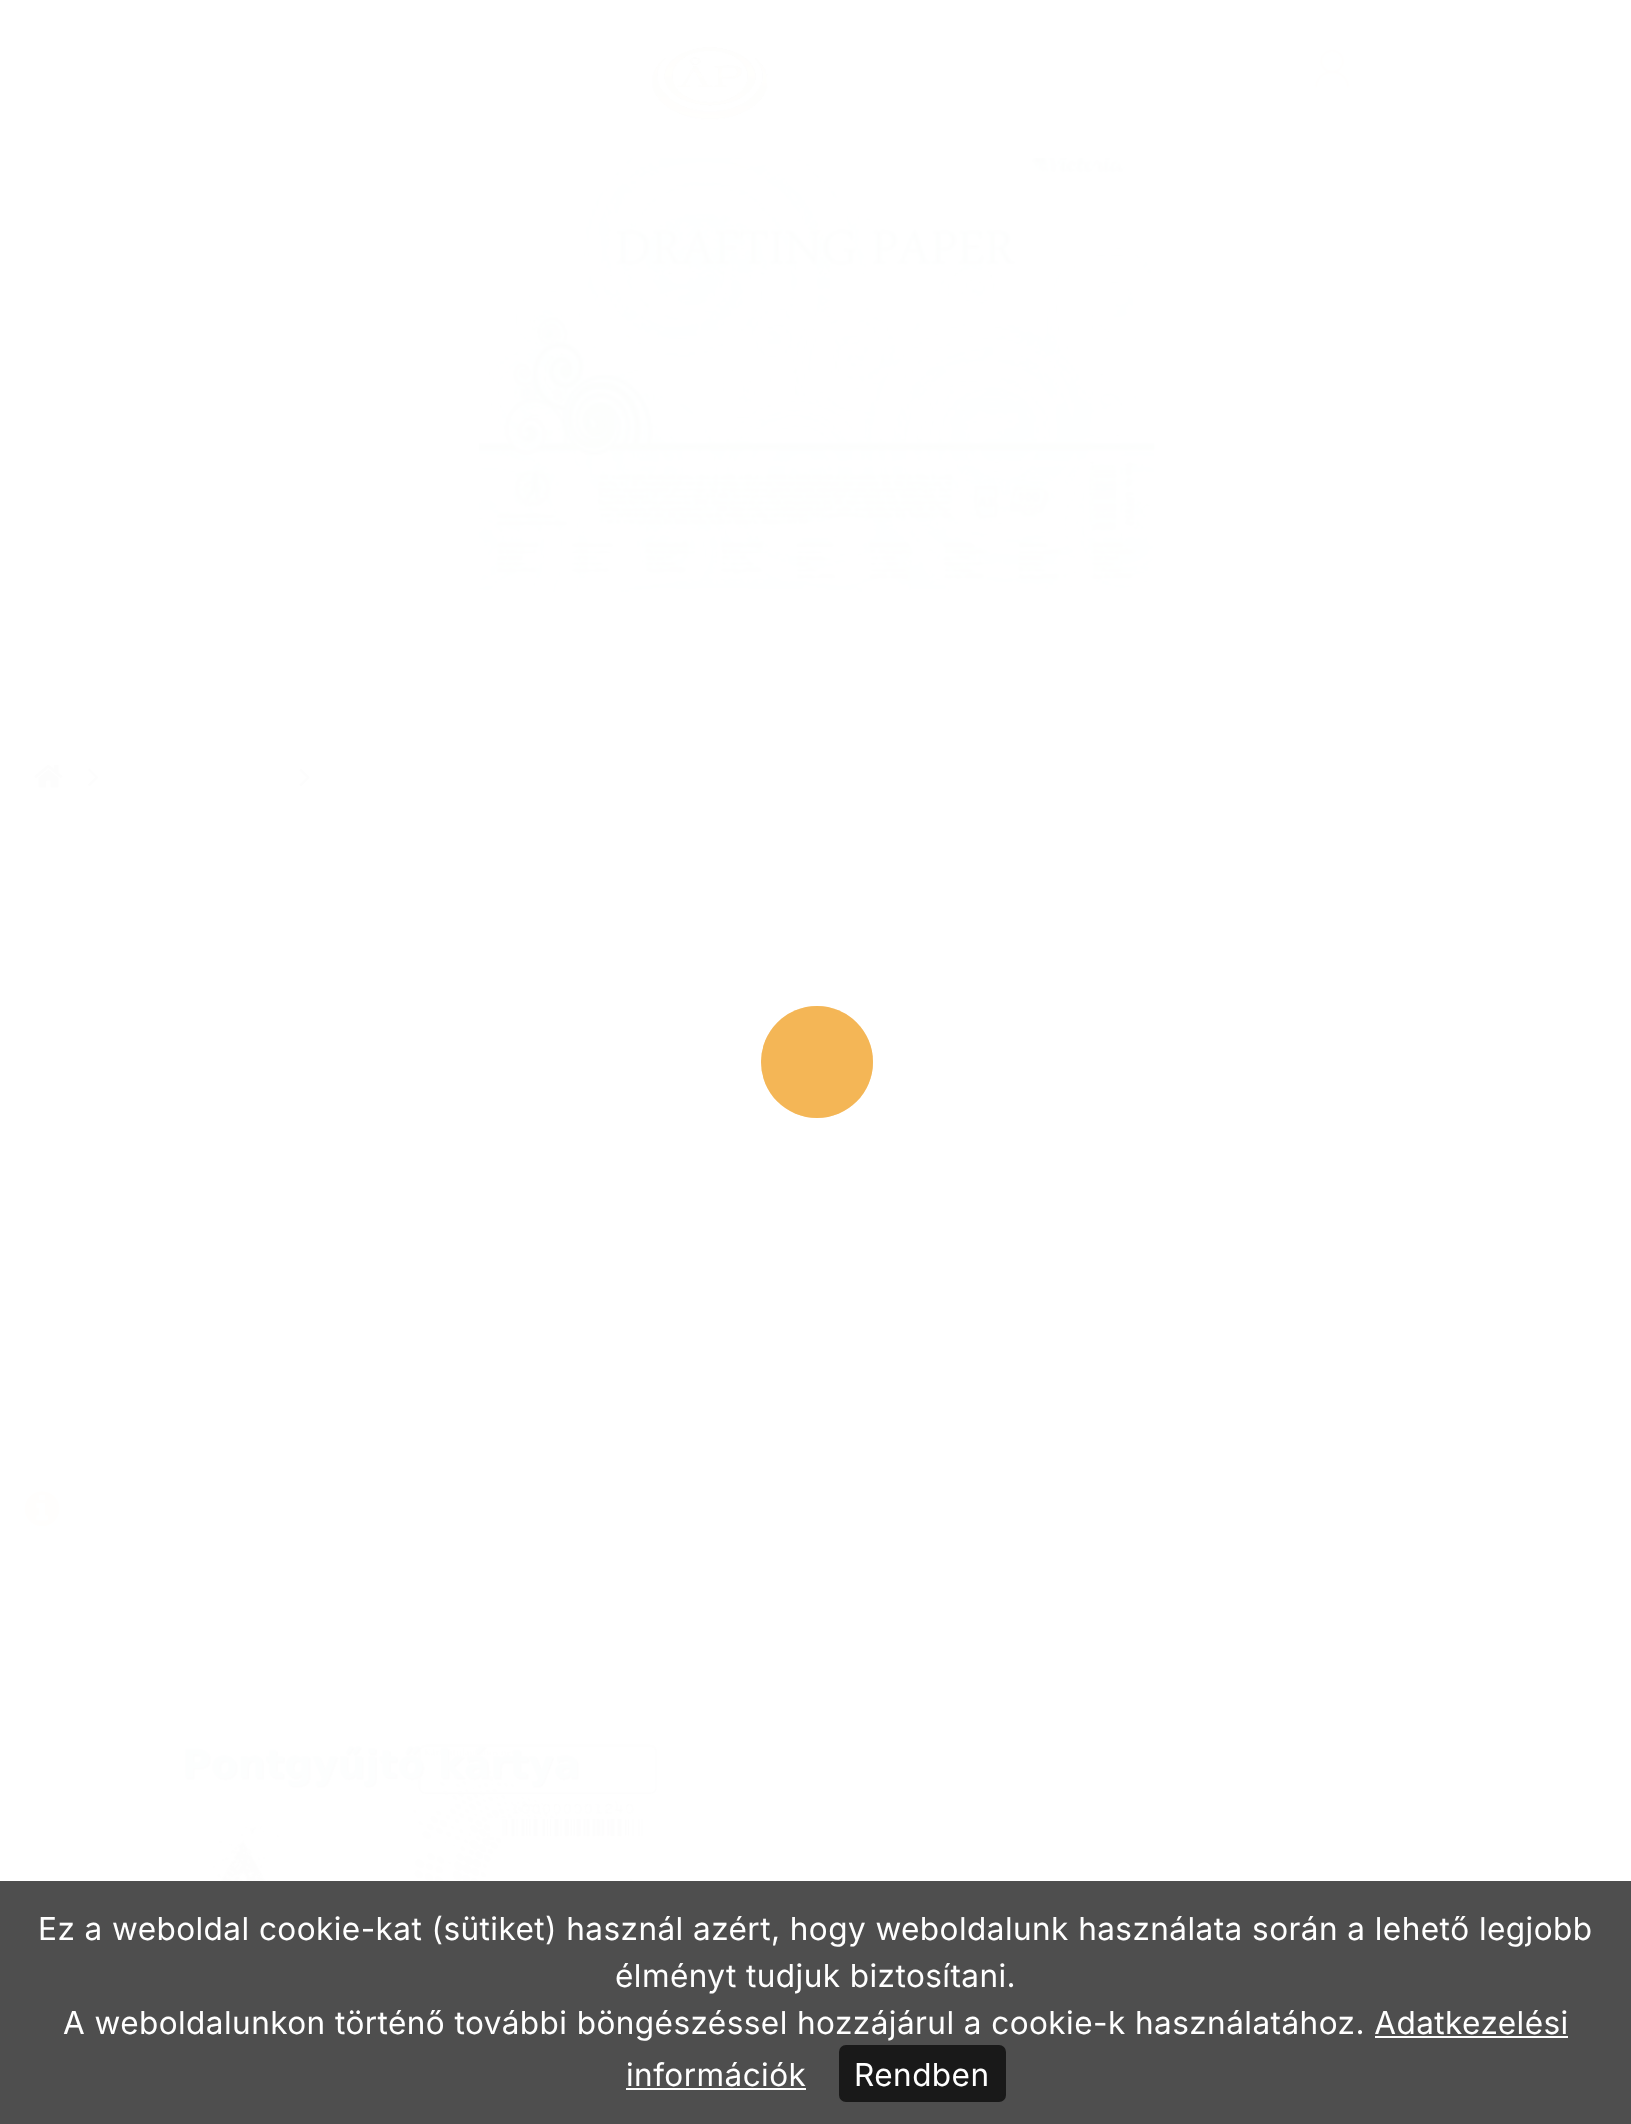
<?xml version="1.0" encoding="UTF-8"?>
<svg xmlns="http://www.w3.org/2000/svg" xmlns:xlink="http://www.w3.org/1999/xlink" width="1631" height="2124">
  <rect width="100%" height="100%" fill="#ffffff" />
  <image x="652" y="47" width="116" height="73" xlink:href="image1.png" />
  <image x="1314" y="49" width="36" height="39" xlink:href="image2.png" />
  <image x="479" y="158" width="676" height="434" xlink:href="image3.png" />
  <image x="34" y="765" width="29" height="23" xlink:href="image4.png" />
  <image x="88" y="768" width="11" height="19" xlink:href="image5.png" />
  <image x="299" y="768" width="11" height="19" xlink:href="image6.png" />
  <image x="24" y="1491" width="36" height="36" xlink:href="image7.png" />
  <image x="109" y="1716" width="564" height="165" xlink:href="image8.png" />
  <circle cx="817" cy="1062" r="56" fill="#f7cb87" />
  <circle cx="817" cy="1062" r="56" fill="#f1a835" fill-opacity="0.6" />
  <rect y="1881" width="1631" height="243" fill="#4e4e4e" />
  <rect x="1375" y="2036" width="193" height="2" fill="#ffffff" />
  <rect x="626" y="2088" width="180" height="2" fill="#ffffff" />
  <rect x="840" y="2046" width="165" height="55" rx="6" fill="#191919" stroke="#191919" stroke-width="2" />
  <text x="38" y="1940" style="font-family: Inter; font-size: 31.5px; letter-spacing: 0.45px; fill: #ffffff">Ez a weboldal cookie-kat (sütiket) használ azért, hogy weboldalunk használata során a lehető legjobb</text>
  <text x="615" y="1987" style="font-family: Inter; font-size: 31.5px; letter-spacing: 0.45px; fill: #ffffff">élményt tudjuk biztosítani.</text>
  <text x="63" y="2034" style="font-family: Inter; font-size: 31.5px; letter-spacing: 0.45px; fill: #ffffff">A weboldalunkon történő további böngészéssel hozzájárul a cookie-k használatához. Adatkezelési</text>
  <text x="626" y="2086" style="font-family: Inter; font-size: 31.5px; letter-spacing: 0.45px; fill: #ffffff">információk</text>
  <text x="854" y="2086" style="font-family: Inter; font-size: 31.5px; letter-spacing: 0.45px; fill: #ffffff">Rendben</text>
</svg>
